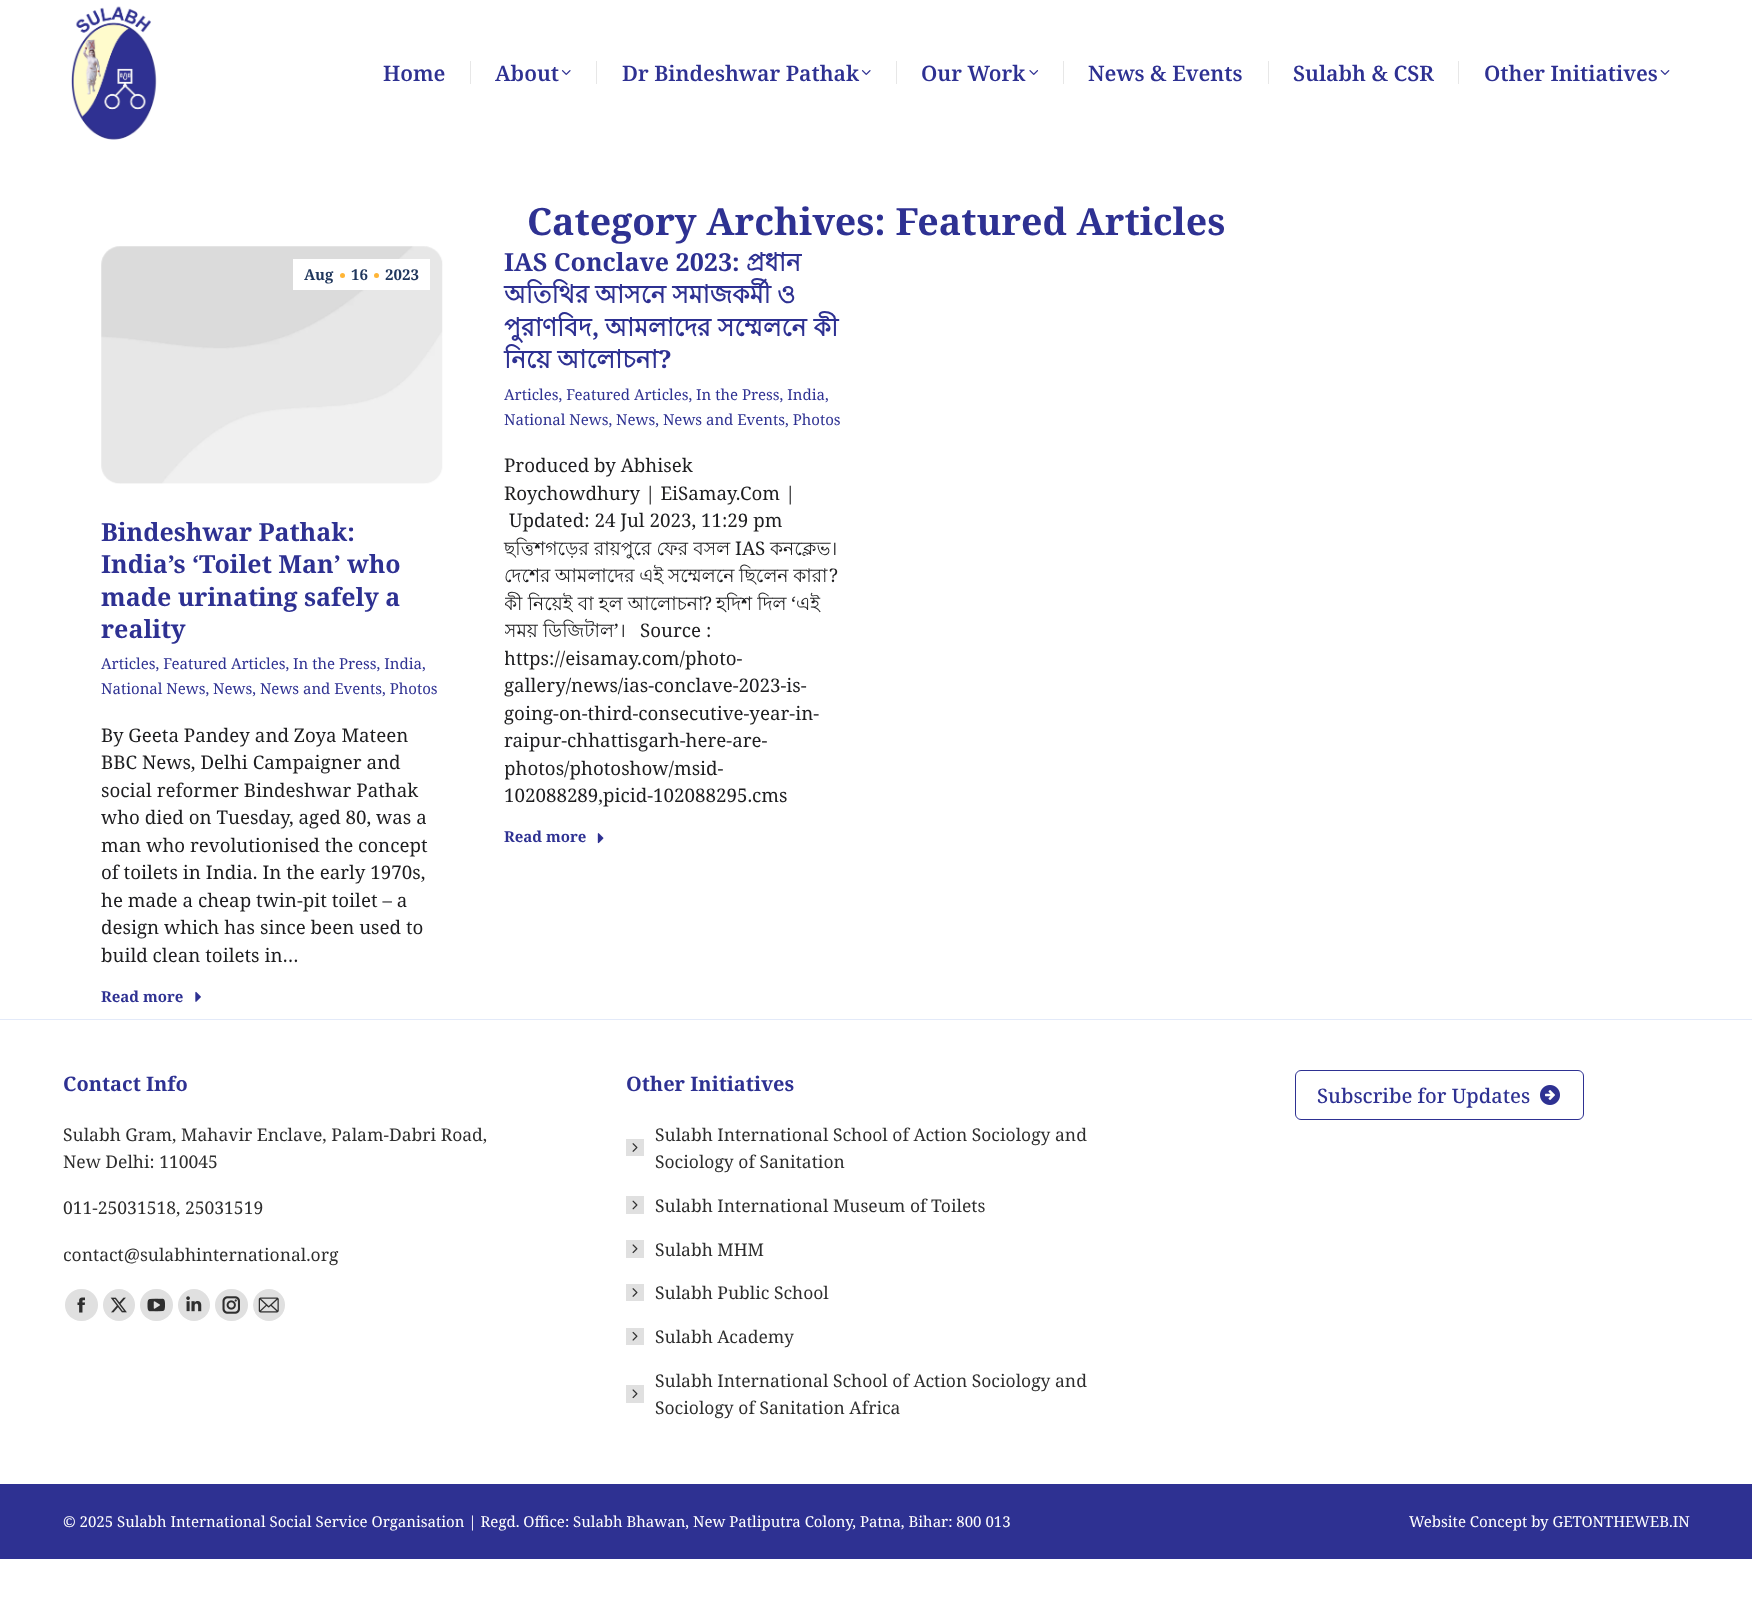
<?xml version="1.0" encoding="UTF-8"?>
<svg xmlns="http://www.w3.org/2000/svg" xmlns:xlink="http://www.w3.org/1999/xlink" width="1752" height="1601">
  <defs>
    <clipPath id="clip1"><rect x="505" y="451" width="340" height="370" /></clipPath>
  </defs>
  <rect width="100%" height="100%" fill="#ffffff" />
  <image x="71" y="6" width="86" height="134" xlink:href="image1.png" />
  <rect x="470" y="61" width="1" height="23" fill="#e7e7e7" />
  <image x="561" y="70" width="10" height="5" xlink:href="image2.png" />
  <rect x="596" y="61" width="1" height="23" fill="#e7e7e7" />
  <image x="861" y="70" width="10" height="5" xlink:href="image2.png" />
  <rect x="896" y="61" width="1" height="23" fill="#e7e7e7" />
  <image x="1029" y="70" width="10" height="5" xlink:href="image3.png" />
  <rect x="1063" y="61" width="1" height="23" fill="#e7e7e7" />
  <rect x="1268" y="61" width="1" height="23" fill="#e7e7e7" />
  <rect x="1458" y="61" width="1" height="23" fill="#e7e7e7" />
  <image x="1660" y="70" width="10" height="5" xlink:href="image4.png" />
  <image x="101" y="246" width="342" height="238" xlink:href="image5.png" />
  <rect x="293" y="259" width="137" height="31" fill="#ffffff" />
  <circle cx="342.5" cy="275.5" r="2.5" fill="#ffb536" />
  <circle cx="376.5" cy="275.5" r="2.5" fill="#ffb536" />
  <image x="195" y="991" width="6" height="11" xlink:href="image6.png" />
  <image x="597" y="833" width="7" height="11" xlink:href="image7.png" />
  <rect y="1019" width="1752" height="1" fill="#e3eaf9" />
  <rect x="65" y="1289" width="33" height="32" rx="16" fill="#e0e0e0" />
  <image x="77" y="1297" width="8" height="16" xlink:href="image8.png" />
  <circle cx="119" cy="1305" r="16" fill="#e0e0e0" />
  <image x="110" y="1297" width="17" height="16" xlink:href="image9.png" />
  <rect x="140" y="1289" width="33" height="32" rx="16" fill="#e0e0e0" />
  <image x="147" y="1298" width="18" height="14" xlink:href="image10.png" />
  <circle cx="194" cy="1305" r="16" fill="#e0e0e0" />
  <image x="186" y="1296" width="16" height="16" xlink:href="image11.png" />
  <rect x="215" y="1289" width="33" height="32" rx="16" fill="#e0e0e0" />
  <image x="222" y="1296" width="18" height="18" xlink:href="image12.png" />
  <circle cx="269" cy="1305" r="16" fill="#e0e0e0" />
  <image x="258" y="1297" width="21" height="16" xlink:href="image13.png" />
  <rect x="626" y="1139" width="18" height="17" fill="#e0e0e0" />
  <image x="632" y="1143" width="6" height="9" xlink:href="image14.png" />
  <rect x="626" y="1196" width="18" height="18" fill="#e0e0e0" />
  <image x="632" y="1200" width="6" height="10" xlink:href="image15.png" />
  <rect x="626" y="1240" width="18" height="18" fill="#e0e0e0" />
  <image x="632" y="1244" width="6" height="10" xlink:href="image16.png" />
  <rect x="626" y="1284" width="18" height="17" fill="#e0e0e0" />
  <image x="632" y="1288" width="6" height="9" xlink:href="image14.png" />
  <rect x="626" y="1328" width="18" height="17" fill="#e0e0e0" />
  <image x="632" y="1331" width="6" height="10" xlink:href="image17.png" />
  <rect x="626" y="1385" width="18" height="18" fill="#e0e0e0" />
  <image x="632" y="1389" width="6" height="10" xlink:href="image16.png" />
  <rect x="1295.5" y="1070.5" width="288" height="49" rx="5.5" fill="none" stroke="#2e3192" />
  <image x="1540" y="1085" width="20" height="20" xlink:href="image18.png" />
  <rect y="1484" width="1752" height="75" fill="#2e3192" />
  <text x="383" y="81" style="font-family: Noto Serif; font-size: 21.25px; font-weight: 600; fill: #2e3192">Home</text>
  <text x="495" y="81" style="font-family: Noto Serif; font-size: 21.25px; font-weight: 600; fill: #2e3192">About</text>
  <text x="622" y="81" style="font-family: Noto Serif; font-size: 21.25px; font-weight: 600; fill: #2e3192">Dr Bindeshwar Pathak</text>
  <text x="921" y="81" style="font-family: Noto Serif; font-size: 21.25px; font-weight: 600; fill: #2e3192">Our Work</text>
  <text x="1088" y="81" style="font-family: Noto Serif; font-size: 21.25px; font-weight: 600; fill: #2e3192">News &amp; Events</text>
  <text x="1293" y="81" style="font-family: Noto Serif; font-size: 21.25px; font-weight: 600; fill: #2e3192">Sulabh &amp; CSR</text>
  <text x="1484" y="81" style="font-family: Noto Serif; font-size: 21.25px; font-weight: 600; fill: #2e3192">Other Initiatives</text>
  <text x="527" y="235" style="font-family: Noto Serif; font-size: 37.5px; font-weight: bold; fill: #2e3192">Category Archives: Featured Articles</text>
  <text x="304" y="280" style="font-family: Noto Serif; font-size: 15px; font-weight: bold; fill: #1f365c">Aug</text>
  <text x="351" y="280" style="font-family: Noto Serif; font-size: 15px; font-weight: bold; fill: #1f365c">16</text>
  <text x="385" y="280" style="font-family: Noto Serif; font-size: 15px; font-weight: bold; fill: #1f365c">2023</text>
  <text x="101" y="541" style="font-family: Noto Serif; font-size: 25px; font-weight: bold; fill: #2e3192">Bindeshwar Pathak:</text>
  <text x="101" y="573" style="font-family: Noto Serif; font-size: 25px; font-weight: bold; fill: #2e3192">India’s ‘Toilet Man’ who</text>
  <text x="101" y="606" style="font-family: Noto Serif; font-size: 25px; font-weight: bold; fill: #2e3192">made urinating safely a</text>
  <text x="101" y="638" style="font-family: Noto Serif; font-size: 25px; font-weight: bold; fill: #2e3192">reality</text>
  <text x="101" y="669" style="font-family: Noto Serif; font-size: 15px; fill: #2e3192">Articles, Featured Articles, In the Press, India,</text>
  <text x="101" y="694" style="font-family: Noto Serif; font-size: 15px; fill: #2e3192">National News, News, News and Events, Photos</text>
  <text x="101" y="742" style="font-family: Noto Serif; font-size: 18.75px; fill: #1d1d1f">By Geeta Pandey and Zoya Mateen</text>
  <text x="101" y="769" style="font-family: Noto Serif; font-size: 18.75px; fill: #1d1d1f">BBC News, Delhi Campaigner and</text>
  <text x="101" y="797" style="font-family: Noto Serif; font-size: 18.75px; fill: #1d1d1f">social reformer Bindeshwar Pathak</text>
  <text x="101" y="824" style="font-family: Noto Serif; font-size: 18.75px; fill: #1d1d1f">who died on Tuesday, aged 80, was a</text>
  <text x="101" y="852" style="font-family: Noto Serif; font-size: 18.75px; fill: #1d1d1f">man who revolutionised the concept</text>
  <text x="101" y="879" style="font-family: Noto Serif; font-size: 18.75px; fill: #1d1d1f">of toilets in India. In the early 1970s,</text>
  <text x="101" y="907" style="font-family: Noto Serif; font-size: 18.75px; fill: #1d1d1f">he made a cheap twin-pit toilet – a</text>
  <text x="101" y="934" style="font-family: Noto Serif; font-size: 18.75px; fill: #1d1d1f">design which has since been used to</text>
  <text x="101" y="962" style="font-family: Noto Serif; font-size: 18.75px; fill: #1d1d1f">build clean toilets in…</text>
  <text x="101" y="1002" style="font-family: Noto Serif; font-size: 15px; font-weight: bold; fill: #2e3192">Read more</text>
  <text x="504" y="271" style="font-family: Noto Serif; font-size: 25px; font-weight: bold; fill: #2e3192">IAS Conclave 2023:</text>
  <text x="746" y="271" style="font-family: Lohit Bengali; font-size: 25px; font-weight: bold; fill: #2e3192">প্রধান</text>
  <text x="504" y="303" word-spacing="-0.5" style="font-family: Lohit Bengali; font-size: 25px; font-weight: bold; fill: #2e3192">অতিথির আসনে সমাজকর্মী ও</text>
  <text x="504" y="336" style="font-family: Lohit Bengali; font-size: 25px; font-weight: bold; fill: #2e3192">পুরাণবিদ</text>
  <text x="592" y="336" style="font-family: Noto Serif; font-size: 25px; font-weight: bold; fill: #2e3192">,</text>
  <text x="605" y="336" style="font-family: Lohit Bengali; font-size: 25px; font-weight: bold; fill: #2e3192">আমলাদের সম্মেলনে কী</text>
  <text x="504" y="368" word-spacing="-0.5" style="font-family: Lohit Bengali; font-size: 25px; font-weight: bold; fill: #2e3192">নিয়ে আলোচনা</text>
  <text x="658" y="368" style="font-family: Noto Serif; font-size: 25px; font-weight: bold; fill: #2e3192">?</text>
  <text x="504" y="400" style="font-family: Noto Serif; font-size: 15px; fill: #2e3192">Articles, Featured Articles, In the Press, India,</text>
  <text x="504" y="425" style="font-family: Noto Serif; font-size: 15px; fill: #2e3192">National News, News, News and Events, Photos</text>
  <text x="504" y="472" style="font-family: Noto Serif; font-size: 18.75px; fill: #1d1d1f">Produced by Abhisek</text>
  <text x="504" y="500" style="font-family: Noto Serif; font-size: 18.75px; fill: #1d1d1f">Roychowdhury | EiSamay.Com |</text>
  <text x="509" y="527" style="font-family: Noto Serif; font-size: 18.75px; fill: #1d1d1f">Updated: 24 Jul 2023, 11:29 pm</text>
  <text x="504" y="555" style="font-family: Lohit Bengali; font-size: 18.75px; fill: #1d1d1f">ছত্তিশগড়ের রায়পুরে ফের বসল</text>
  <text x="735" y="555" style="font-family: Noto Serif; font-size: 18.75px; fill: #1d1d1f">IAS</text>
  <text x="770" y="555" style="font-family: Lohit Bengali; font-size: 18.75px; fill: #1d1d1f">কনক্লেভ।</text>
  <text x="504" y="582" word-spacing="-0.5" style="font-family: Lohit Bengali; font-size: 18.75px; fill: #1d1d1f">দেশের আমলাদের এই সম্মেলনে ছিলেন কারা</text>
  <text x="829" y="582" style="font-family: Noto Serif; font-size: 18.75px; fill: #1d1d1f">?</text>
  <g clip-path="url(#clip1)">
    <text x="504" y="610" style="font-family: Lohit Bengali; font-size: 18.75px; fill: #1d1d1f">কী নিয়েই বা হল আলোচনা</text>
  </g>
  <text x="703" y="610" style="font-family: Noto Serif; font-size: 18.75px; fill: #1d1d1f">?</text>
  <text x="716" y="610" style="font-family: Lohit Bengali; font-size: 18.75px; fill: #1d1d1f">হদিশ দিল</text>
  <text x="791" y="610" style="font-family: Noto Serif; font-size: 18.75px; fill: #1d1d1f">‘</text>
  <text x="796" y="610" style="font-family: Lohit Bengali; font-size: 18.75px; fill: #1d1d1f">এই</text>
  <g clip-path="url(#clip1)">
    <text x="504" y="637" style="font-family: Lohit Bengali; font-size: 18.75px; fill: #1d1d1f">সময়</text>
  </g>
  <text x="543" y="637" style="font-family: Lohit Bengali; font-size: 18.75px; fill: #1d1d1f">ডিজিটাল</text>
  <text x="614" y="637" style="font-family: Noto Serif; font-size: 18.75px; fill: #1d1d1f">’</text>
  <text x="619" y="637" style="font-family: Lohit Bengali; font-size: 18.75px; fill: #1d1d1f">।</text>
  <text x="640" y="637" style="font-family: Noto Serif; font-size: 18.75px; fill: #1d1d1f">Source :</text>
  <g clip-path="url(#clip1)">
    <text x="504" y="665" style="font-family: Noto Serif; font-size: 18.75px; fill: #1d1d1f">https://eisamay.com/photo-</text>
  </g>
  <text x="504" y="692" style="font-family: Noto Serif; font-size: 18.75px; fill: #1d1d1f">gallery/news/ias-conclave-2023-is-</text>
  <text x="504" y="720" style="font-family: Noto Serif; font-size: 18.75px; fill: #1d1d1f">going-on-third-consecutive-year-in-</text>
  <text x="504" y="747" style="font-family: Noto Serif; font-size: 18.75px; fill: #1d1d1f">raipur-chhattisgarh-here-are-</text>
  <g clip-path="url(#clip1)">
    <text x="504" y="775" style="font-family: Noto Serif; font-size: 18.75px; fill: #1d1d1f">photos/photoshow/msid-</text>
  </g>
  <text x="504" y="802" style="font-family: Noto Serif; font-size: 18.75px; fill: #1d1d1f">102088289,picid-102088295.cms</text>
  <text x="504" y="842" style="font-family: Noto Serif; font-size: 15px; font-weight: bold; fill: #2e3192">Read more</text>
  <text x="63" y="1091" style="font-family: Noto Serif; font-size: 20px; font-weight: bold; fill: #2e3192">Contact Info</text>
  <text x="63" y="1141" style="font-family: Noto Serif; font-size: 17.5px; fill: #2e2e2e">Sulabh Gram, Mahavir Enclave, Palam-Dabri Road,</text>
  <text x="63" y="1168" style="font-family: Noto Serif; font-size: 17.5px; fill: #2e2e2e">New Delhi: 110045</text>
  <text x="63" y="1214" style="font-family: Noto Serif; font-size: 17.5px; fill: #2e2e2e">011-25031518, 25031519</text>
  <text x="63" y="1261" style="font-family: Noto Serif; font-size: 17.5px; fill: #2e2e2e">contact@sulabhinternational.org</text>
  <text x="626" y="1091" style="font-family: Noto Serif; font-size: 20px; font-weight: bold; fill: #2e3192">Other Initiatives</text>
  <text x="655" y="1141" style="font-family: Noto Serif; font-size: 17.5px; fill: #2e2e2e">Sulabh International School of Action Sociology and</text>
  <text x="655" y="1168" style="font-family: Noto Serif; font-size: 17.5px; fill: #2e2e2e">Sociology of Sanitation</text>
  <text x="655" y="1212" style="font-family: Noto Serif; font-size: 17.5px; fill: #2e2e2e">Sulabh International Museum of Toilets</text>
  <text x="655" y="1256" style="font-family: Noto Serif; font-size: 17.5px; fill: #2e2e2e">Sulabh MHM</text>
  <text x="655" y="1299" style="font-family: Noto Serif; font-size: 17.5px; fill: #2e2e2e">Sulabh Public School</text>
  <text x="655" y="1343" style="font-family: Noto Serif; font-size: 17.5px; fill: #2e2e2e">Sulabh Academy</text>
  <text x="655" y="1387" style="font-family: Noto Serif; font-size: 17.5px; fill: #2e2e2e">Sulabh International School of Action Sociology and</text>
  <text x="655" y="1414" style="font-family: Noto Serif; font-size: 17.5px; fill: #2e2e2e">Sociology of Sanitation Africa</text>
  <text x="1317" y="1103" style="font-family: Noto Serif; font-size: 20px; font-weight: 500; fill: #2e3192">Subscribe for Updates</text>
  <text x="63" y="1527" style="font-family: Noto Serif; font-size: 15px; fill: #ffffff">© 2025 Sulabh International Social Service Organisation | Regd. Office: Sulabh Bhawan, New Patliputra Colony, Patna, Bihar: 800 013</text>
  <text x="1409" y="1527" style="font-family: Noto Serif; font-size: 15px; fill: #ffffff">Website Concept by GETONTHEWEB.IN</text>
</svg>
